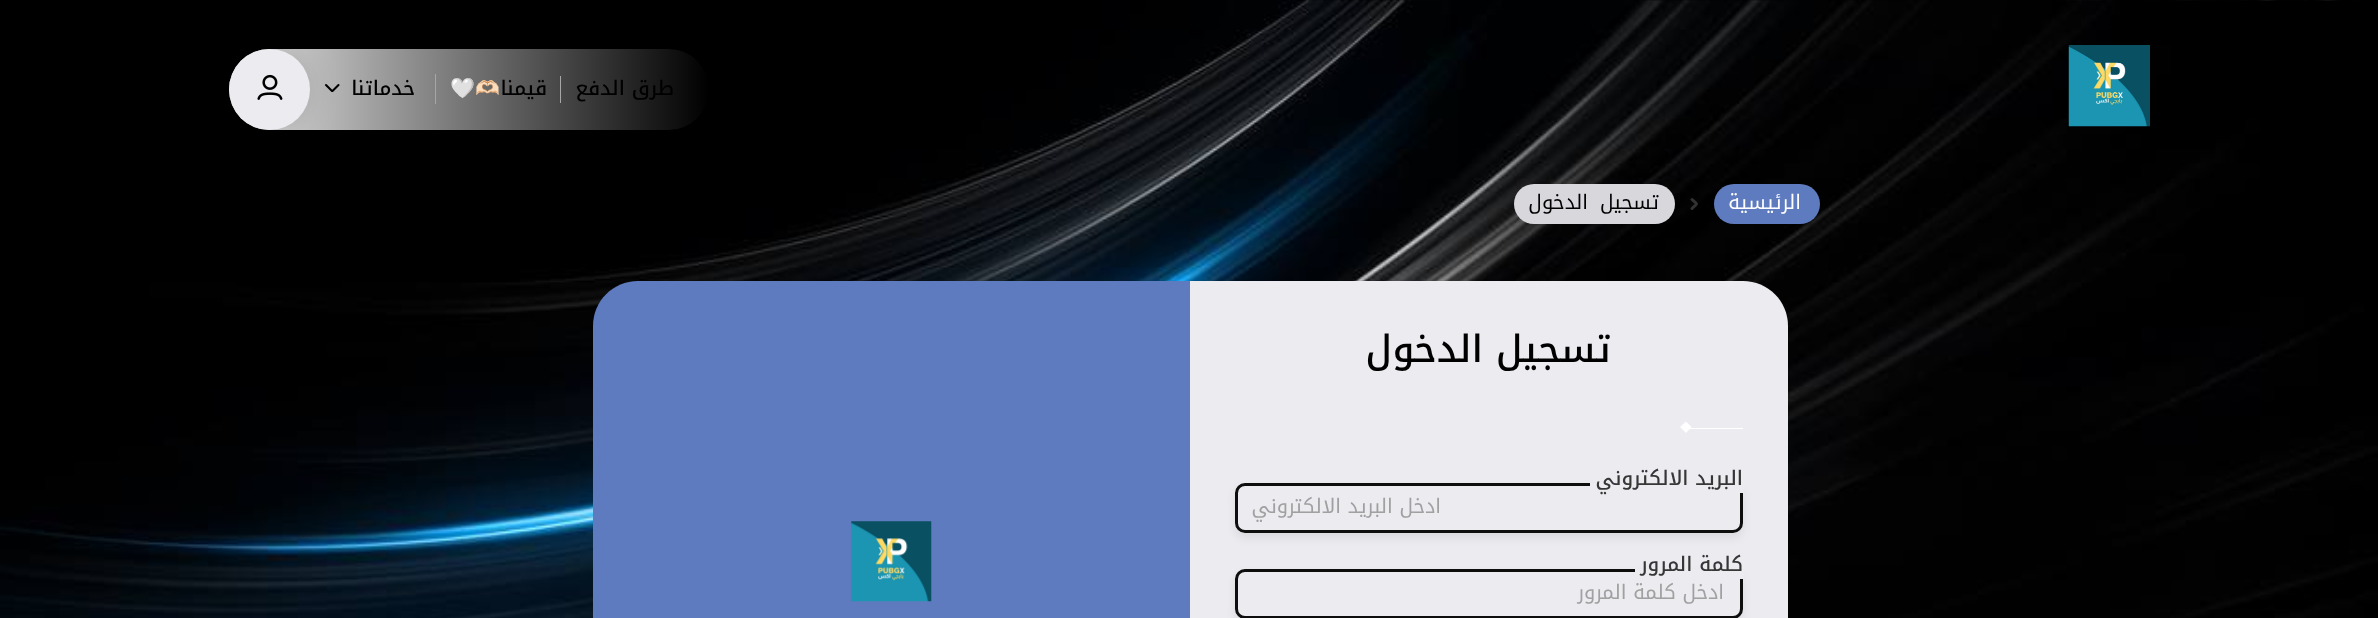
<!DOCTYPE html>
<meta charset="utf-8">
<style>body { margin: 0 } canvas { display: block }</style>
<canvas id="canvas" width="2378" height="618"></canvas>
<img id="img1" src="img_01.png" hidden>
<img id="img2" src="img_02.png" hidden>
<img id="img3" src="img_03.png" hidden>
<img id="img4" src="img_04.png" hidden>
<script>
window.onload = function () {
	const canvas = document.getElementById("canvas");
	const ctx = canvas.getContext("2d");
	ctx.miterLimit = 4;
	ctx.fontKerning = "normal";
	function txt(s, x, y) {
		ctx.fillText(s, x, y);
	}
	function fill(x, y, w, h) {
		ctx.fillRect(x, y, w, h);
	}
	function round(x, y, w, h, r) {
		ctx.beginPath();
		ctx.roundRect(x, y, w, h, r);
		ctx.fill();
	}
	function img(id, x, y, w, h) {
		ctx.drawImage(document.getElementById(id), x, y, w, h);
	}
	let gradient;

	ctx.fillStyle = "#FFFFFF";
	fill(0, 0, 2378, 618);
	img("img1", 0, 0, 2378, 618);
	img("img2", 2068, 45, 82, 82);
	gradient = ctx.createLinearGradient(229, 89, 709, 89);
	gradient.addColorStop(0, "#E5E5E5");
	gradient.addColorStop(1, "#000000");
	ctx.fillStyle = gradient;
	round(229, 49, 480, 81, 40.5);
	ctx.fillStyle = "#A7A7A7";
	fill(560, 76, 1, 27);
	fill(435, 74, 1, 30);
	ctx.fillStyle = "rgba(0, 0, 0, 0.24)";
	ctx.filter = "blur(17px)";
	ctx.beginPath();
	ctx.roundRect(226, 53, 74, 73, 36.5);
	ctx.fill();
	ctx.filter = "none";
	ctx.beginPath();
	ctx.moveTo(326, 85);
	ctx.lineTo(332, 91);
	ctx.lineTo(332.5, 91);
	ctx.lineTo(338.5, 85);
	ctx.strokeStyle = "#000000";
	ctx.lineWidth = 2.1;
	ctx.lineCap = "round";
	ctx.lineJoin = "round";
	ctx.stroke();
	ctx.fillStyle = "#EBEBF0";
	ctx.beginPath();
	ctx.arc(269.5, 89.5, 40.5, 0, Math.PI * 2);
	ctx.fill();
	img("img3", 257, 74, 26, 26);
	ctx.fillStyle = "#5E7BBF";
	round(1714, 184, 106, 40, 20);
	ctx.beginPath();
	ctx.moveTo(1692, 208.5);
	ctx.bezierCurveTo(1698, 202.5, 1698, 205, 1692, 199.5);
	ctx.strokeStyle = "#323232";
	ctx.lineWidth = 3;
	ctx.stroke();
	ctx.fillStyle = "#D8D8DC";
	round(1514, 184, 161, 40, 20);
	ctx.fillStyle = "#EBEBF0";
	ctx.beginPath();
	ctx.moveTo(1190, 281);
	ctx.lineTo(1743, 281);
	ctx.bezierCurveTo(1768, 281, 1788, 301, 1788, 326);
	ctx.lineTo(1788, 618);
	ctx.bezierCurveTo(1788, 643, 1768, 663, 1743, 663);
	ctx.lineTo(1190, 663);
	ctx.closePath();
	ctx.fill();
	ctx.fillStyle = "#FFFFFF";
	fill(1683, 428, 60, 1);
	ctx.beginPath();
	ctx.moveTo(1686, 433);
	ctx.lineTo(1680, 427);
	ctx.lineTo(1686, 421.5);
	ctx.lineTo(1691.5, 427);
	ctx.closePath();
	ctx.fill();
	ctx.save();
	ctx.beginPath();
	ctx.moveTo(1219, 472);
	ctx.lineTo(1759, 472);
	ctx.lineTo(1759, 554);
	ctx.lineTo(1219, 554);
	ctx.closePath();
	ctx.moveTo(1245, 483);
	ctx.lineTo(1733, 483);
	ctx.bezierCurveTo(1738.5, 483, 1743, 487.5, 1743, 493);
	ctx.lineTo(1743, 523);
	ctx.bezierCurveTo(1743, 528.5, 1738.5, 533, 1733, 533);
	ctx.lineTo(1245, 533);
	ctx.bezierCurveTo(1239.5, 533, 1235, 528.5, 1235, 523);
	ctx.lineTo(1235, 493);
	ctx.bezierCurveTo(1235, 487.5, 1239.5, 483, 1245, 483);
	ctx.closePath();
	ctx.clip("evenodd");
	ctx.fillStyle = "rgba(0, 0, 0, 0.07)";
	ctx.filter = "blur(5px)";
	ctx.beginPath();
	ctx.roundRect(1235, 488, 508, 50, 10);
	ctx.fill();
	ctx.filter = "none";
	ctx.restore();
	ctx.beginPath();
	ctx.roundRect(1236.5, 484.5, 505, 47, 8.5);
	ctx.strokeStyle = "#0E0E0E";
	ctx.lineJoin = "miter";
	ctx.stroke();
	ctx.fillStyle = "#EBEBF0";
	fill(1590, 483, 154, 10);
	ctx.save();
	ctx.beginPath();
	ctx.moveTo(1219, 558);
	ctx.lineTo(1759, 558);
	ctx.lineTo(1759, 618);
	ctx.lineTo(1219, 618);
	ctx.closePath();
	ctx.moveTo(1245, 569);
	ctx.lineTo(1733, 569);
	ctx.bezierCurveTo(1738.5, 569, 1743, 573.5, 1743, 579);
	ctx.lineTo(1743, 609);
	ctx.bezierCurveTo(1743, 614.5, 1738.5, 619, 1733, 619);
	ctx.lineTo(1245, 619);
	ctx.bezierCurveTo(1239.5, 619, 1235, 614.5, 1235, 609);
	ctx.lineTo(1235, 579);
	ctx.bezierCurveTo(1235, 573.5, 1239.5, 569, 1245, 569);
	ctx.closePath();
	ctx.clip("evenodd");
	ctx.fillStyle = "rgba(0, 0, 0, 0.07)";
	ctx.filter = "blur(5px)";
	ctx.beginPath();
	ctx.roundRect(1235, 574, 508, 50, 10);
	ctx.fill();
	ctx.filter = "none";
	ctx.restore();
	ctx.beginPath();
	ctx.roundRect(1236.5, 570.5, 505, 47, 8.5);
	ctx.stroke();
	fill(1635, 569, 109, 10);
	ctx.fillStyle = "#5E7BBF";
	ctx.beginPath();
	ctx.moveTo(638, 281);
	ctx.lineTo(1190, 281);
	ctx.lineTo(1190, 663);
	ctx.lineTo(638, 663);
	ctx.bezierCurveTo(613, 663, 593, 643, 593, 618);
	ctx.lineTo(593, 326);
	ctx.bezierCurveTo(593, 301, 613, 281, 638, 281);
	ctx.closePath();
	ctx.fill();
	img("img4", 851, 521, 81, 81);
	ctx.direction = "rtl";
	ctx.font = "500 20px Noto Kufi Arabic";
	ctx.fillStyle = "#000000";
	txt("طرق الدفع", 674, 95);
	txt("قيمنا", 547, 95);
	ctx.font = "20px Noto Color Emoji";
	txt("🫶🏻🤍", 500, 95);
	ctx.font = "500 20px Noto Kufi Arabic";
	txt("خدماتنا", 415, 95);
	ctx.font = "20px Noto Kufi Arabic";
	ctx.fillStyle = "#FFFFFF";
	txt("الرئيسية", 1801, 209);
	ctx.wordSpacing = "5px";
	ctx.fillStyle = "#000000";
	txt("تسجيل الدخول", 1659, 209);
	ctx.wordSpacing = "0px";
	ctx.font = "500 37.5px Noto Kufi Arabic";
	txt("تسجيل الدخول", 1611, 362);
	ctx.font = "500 20px Noto Kufi Arabic";
	ctx.fillStyle = "#363636";
	txt("البريد الالكتروني", 1743, 485);
	ctx.font = "20px Noto Kufi Arabic";
	ctx.fillStyle = "#A0A0A0";
	txt("ادخل البريد الالكتروني", 1441, 513);
	ctx.font = "500 20px Noto Kufi Arabic";
	ctx.fillStyle = "#363636";
	txt("كلمة المرور", 1743, 571);
	ctx.font = "20px Noto Kufi Arabic";
	ctx.fillStyle = "#A0A0A0";
	txt("ادخل كلمة المرور", 1724, 599);
};
</script>
